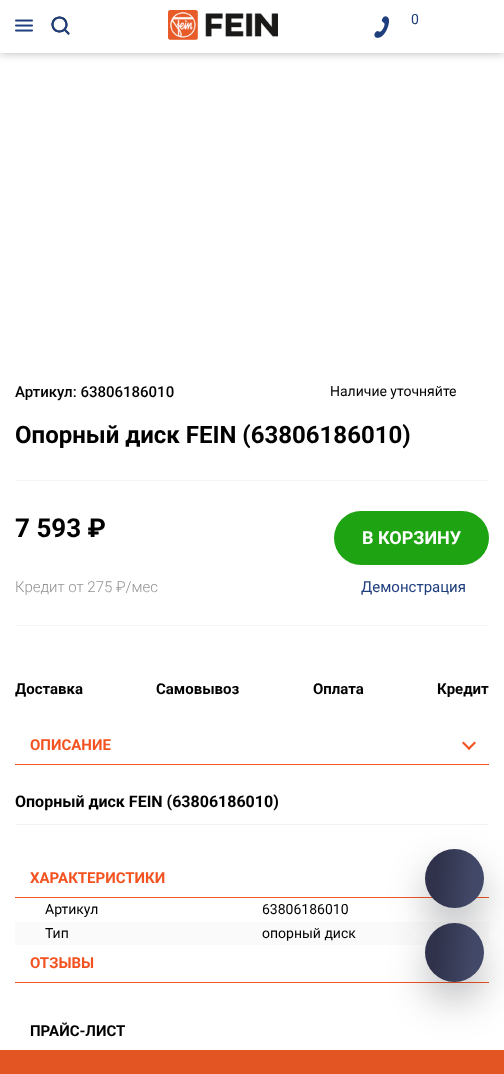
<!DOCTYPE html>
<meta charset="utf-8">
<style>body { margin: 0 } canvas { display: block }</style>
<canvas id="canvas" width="504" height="1074"></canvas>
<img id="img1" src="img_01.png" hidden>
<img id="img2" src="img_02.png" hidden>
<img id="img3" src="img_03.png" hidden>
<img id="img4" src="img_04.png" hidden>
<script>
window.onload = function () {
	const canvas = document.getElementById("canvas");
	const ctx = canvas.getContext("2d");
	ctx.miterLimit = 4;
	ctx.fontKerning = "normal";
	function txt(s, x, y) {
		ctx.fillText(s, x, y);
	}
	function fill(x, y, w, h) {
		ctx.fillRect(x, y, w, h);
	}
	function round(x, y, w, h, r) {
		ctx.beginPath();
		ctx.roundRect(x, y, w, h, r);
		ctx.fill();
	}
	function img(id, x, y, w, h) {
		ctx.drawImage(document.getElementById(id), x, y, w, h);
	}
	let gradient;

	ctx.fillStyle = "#FFFFFF";
	fill(0, 0, 504, 1074);
	ctx.save();
	ctx.beginPath();
	ctx.rect(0, 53, 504, 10);
	ctx.clip();
	ctx.fillStyle = "#B3B3B7";
	ctx.filter = "blur(5px)";
	ctx.beginPath();
	ctx.rect(0, 0, 504, 53);
	ctx.fill();
	ctx.filter = "none";
	ctx.restore();
	img("img1", 15, 19, 18, 13);
	img("img2", 51, 16, 19, 19);
	img("img3", 168, 10, 110, 30);
	img("img4", 374, 16, 15, 22);
	ctx.fillStyle = "#F4F4F4";
	fill(15, 480, 474, 1);
	ctx.fillStyle = "#1EA312";
	round(334, 511, 155, 54, 27);
	ctx.fillStyle = "#F4F4F4";
	fill(15, 625, 474, 1);
	ctx.fillStyle = "#F35321";
	fill(15, 764, 474, 1);
	ctx.beginPath();
	ctx.moveTo(474.5, 741.5);
	ctx.lineTo(476, 743);
	ctx.lineTo(469, 750);
	ctx.lineTo(467.5, 748.5);
	ctx.closePath();
	ctx.fill();
	ctx.beginPath();
	ctx.moveTo(463.5, 741.5);
	ctx.lineTo(470.5, 748.5);
	ctx.lineTo(469, 750);
	ctx.lineTo(462, 743);
	ctx.closePath();
	ctx.fill();
	ctx.fillStyle = "#F3F3F3";
	fill(15, 824, 474, 1);
	ctx.fillStyle = "#F35321";
	fill(15, 897, 474, 1);
	ctx.fillStyle = "#FAFAFA";
	fill(15, 922, 474, 23);
	ctx.fillStyle = "#F35321";
	fill(15, 982, 474, 1);
	ctx.fillStyle = "#E35523";
	fill(0, 1050, 504, 24);
	ctx.fillStyle = "rgba(34, 36, 43, 0.3)";
	ctx.filter = "blur(19px)";
	ctx.beginPath();
	ctx.roundRect(425, 868, 59, 59, 29.5);
	ctx.fill();
	ctx.filter = "none";
	gradient = ctx.createLinearGradient(423, 876, 486, 881);
	gradient.addColorStop(0.2, "#2F324A");
	gradient.addColorStop(0.8, "#424867");
	ctx.fillStyle = gradient;
	ctx.beginPath();
	ctx.arc(454.5, 878.5, 29.5, 0, Math.PI * 2);
	ctx.fill();
	ctx.fillStyle = "rgba(34, 36, 43, 0.3)";
	ctx.filter = "blur(19px)";
	ctx.beginPath();
	ctx.roundRect(425, 942, 59, 59, 29.5);
	ctx.fill();
	ctx.filter = "none";
	gradient = ctx.createLinearGradient(423, 950, 486, 955);
	gradient.addColorStop(0.2, "#2F324A");
	gradient.addColorStop(0.8, "#424867");
	ctx.fillStyle = gradient;
	ctx.beginPath();
	ctx.arc(454.5, 952.5, 29.5, 0, Math.PI * 2);
	ctx.fill();
	ctx.font = "14px Roboto";
	ctx.fillStyle = "#1F3E7D";
	txt("0", 411, 24);
	ctx.font = "500 15px Roboto";
	ctx.fillStyle = "#000000";
	txt("Артикул: 63806186010", 15, 397);
	ctx.font = "14px Roboto";
	txt("Наличие уточняйте", 330, 396);
	ctx.font = "bold 24px Roboto";
	txt("Опорный диск FEIN (63806186010)", 15, 443);
	ctx.font = "bold 26px Roboto";
	txt("7 593 ₽", 15, 537);
	ctx.font = "bold 18px Roboto";
	ctx.fillStyle = "#FFFFFF";
	txt("В КОРЗИНУ", 362, 544);
	ctx.font = "300 15px Roboto";
	ctx.fillStyle = "#939393";
	txt("Кредит от 275 ₽/мес", 15, 592);
	ctx.font = "15px Roboto";
	ctx.fillStyle = "#1F3E7D";
	txt("Демонстрация", 361, 592);
	ctx.font = "bold 15px Roboto";
	ctx.fillStyle = "#000000";
	txt("Доставка", 15, 694);
	txt("Самовывоз", 156, 694);
	txt("Оплата", 313, 694);
	txt("Кредит", 437, 694);
	ctx.fillStyle = "#F35321";
	txt("ОПИСАНИЕ", 30, 750);
	ctx.font = "bold 16px Roboto";
	ctx.fillStyle = "#000000";
	txt("Опорный диск FEIN (63806186010)", 15, 807);
	ctx.font = "bold 15px Roboto";
	ctx.fillStyle = "#F35321";
	txt("ХАРАКТЕРИСТИКИ", 30, 883);
	ctx.font = "14px Roboto";
	ctx.fillStyle = "#000000";
	txt("Артикул", 45, 914);
	txt("63806186010", 262, 914);
	txt("Тип", 45, 938);
	txt("опорный диск", 262, 938);
	ctx.font = "bold 15px Roboto";
	ctx.fillStyle = "#F35321";
	txt("ОТЗЫВЫ", 30, 968);
	ctx.fillStyle = "#000000";
	txt("ПРАЙС-ЛИСТ", 30, 1036);
};
</script>
